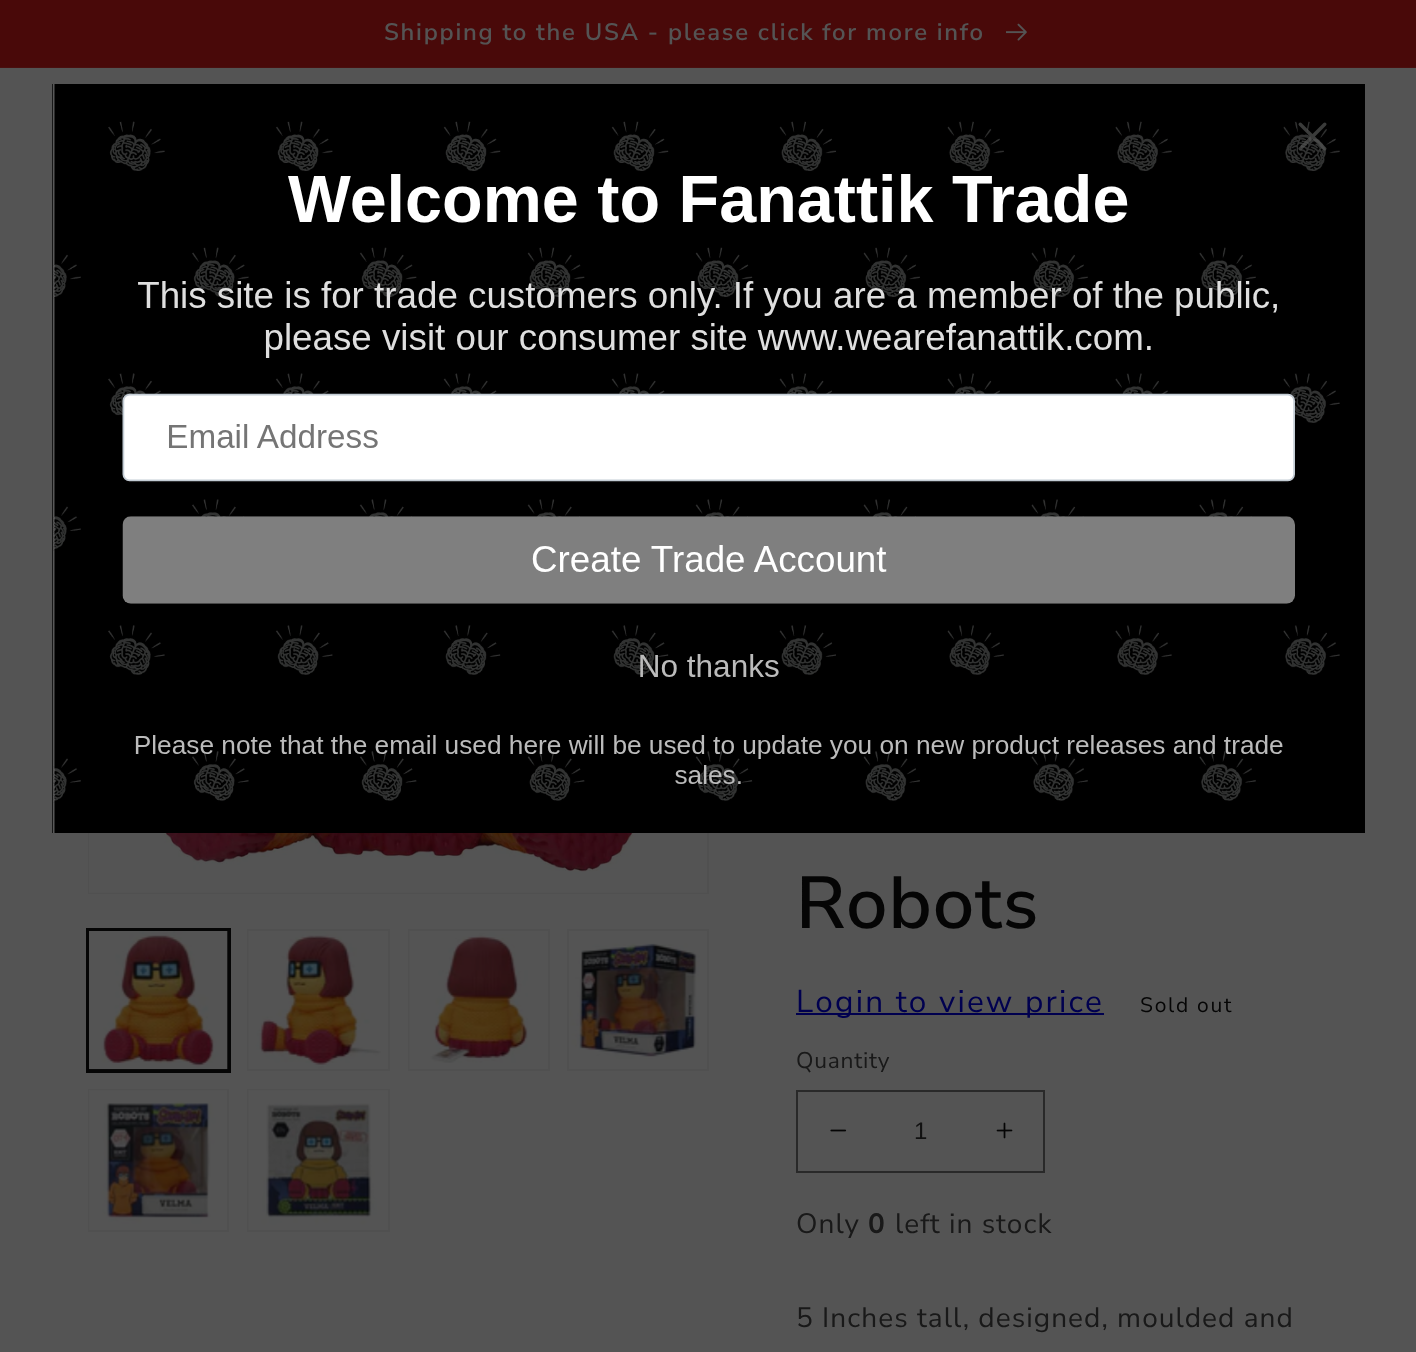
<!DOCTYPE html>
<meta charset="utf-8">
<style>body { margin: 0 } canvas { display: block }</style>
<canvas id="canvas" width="1416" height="1352"></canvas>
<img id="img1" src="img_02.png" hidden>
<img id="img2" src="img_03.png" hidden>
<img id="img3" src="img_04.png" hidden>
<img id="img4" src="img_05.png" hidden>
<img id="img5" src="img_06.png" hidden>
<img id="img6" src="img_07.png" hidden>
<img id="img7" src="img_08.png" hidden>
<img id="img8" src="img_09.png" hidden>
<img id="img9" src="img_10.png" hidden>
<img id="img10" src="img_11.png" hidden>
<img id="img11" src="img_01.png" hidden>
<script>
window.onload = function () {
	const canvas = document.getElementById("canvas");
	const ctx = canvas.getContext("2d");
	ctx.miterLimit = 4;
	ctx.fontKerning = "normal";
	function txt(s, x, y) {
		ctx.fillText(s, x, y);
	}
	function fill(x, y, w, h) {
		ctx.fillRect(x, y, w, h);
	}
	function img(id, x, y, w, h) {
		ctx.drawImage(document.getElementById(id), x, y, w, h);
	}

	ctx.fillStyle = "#FFFFFF";
	fill(0, 0, 1416, 1352);
	ctx.fillStyle = "#DD1D1D";
	fill(0, 0, 1416, 67);
	ctx.fillStyle = "#E02F2F";
	fill(0, 67, 1416, 1);
	img("img1", 1006, 23, 21, 18);
	ctx.strokeStyle = "#F3F3F3";
	ctx.lineWidth = 2;
	ctx.strokeRect(89, 271, 619, 622);
	img("img2", 89, 833, 618, 60);
	ctx.strokeStyle = "#121212";
	ctx.strokeRect(87, 929, 143, 143);
	ctx.strokeRect(89, 930, 139, 140);
	img("img3", 89, 931, 139, 139);
	ctx.strokeStyle = "#F3F3F3";
	ctx.strokeRect(248, 930, 141, 140);
	img("img4", 248, 931, 133, 138);
	ctx.strokeRect(409, 930, 140, 140);
	img("img5", 409, 931, 119, 138);
	ctx.strokeRect(568, 930, 140, 140);
	img("img6", 569, 943, 131, 116);
	ctx.strokeRect(89, 1090, 139, 141);
	img("img7", 89, 1090, 138, 140);
	ctx.strokeRect(248, 1090, 141, 141);
	img("img8", 248, 1090, 140, 140);
	ctx.fillStyle = "#0000EE";
	fill(796, 1013, 308, 2);
	img("img9", 830, 1129, 17, 3);
	img("img10", 996, 1122, 17, 17);
	ctx.strokeStyle = "#7D7D7D";
	ctx.strokeRect(797, 1091, 247, 81);
	ctx.letterSpacing = "1.75px";
	ctx.font = "600 23.9px Nunito Sans";
	ctx.fillStyle = "#FFFFFF";
	txt("Shipping to the USA - please click for more info", 384, 40);
	ctx.letterSpacing = "1px";
	ctx.font = "600 73.5px Nunito Sans";
	ctx.fillStyle = "#121212";
	txt("Robots", 796, 928);
	ctx.letterSpacing = "2.25px";
	ctx.font = "31.5px Nunito Sans";
	ctx.fillStyle = "#0000EE";
	txt("Login to view price", 796, 1012);
	ctx.letterSpacing = "1.75px";
	ctx.font = "21px Nunito Sans";
	ctx.fillStyle = "#121212";
	txt("Sold out", 1140, 1012);
	ctx.letterSpacing = "0.75px";
	ctx.font = "22.75px Nunito Sans";
	ctx.fillStyle = "#4D4D4D";
	txt("Quantity", 796, 1068);
	ctx.letterSpacing = "0px";
	ctx.font = "24px Liberation Sans";
	ctx.fillStyle = "#363636";
	txt("1", 914, 1139);
	ctx.letterSpacing = "1.05px";
	ctx.font = "28px Nunito Sans";
	ctx.fillStyle = "#4D4D4D";
	txt("Only", 796, 1233);
	ctx.font = "bold 28px Nunito Sans";
	txt("0", 868, 1233);
	ctx.font = "28px Nunito Sans";
	txt("left in stock", 895, 1233);
	txt("5 Inches tall, designed, moulded and", 796, 1327);
	img("img11", 0, 0, 1416, 1352);
};
</script>
